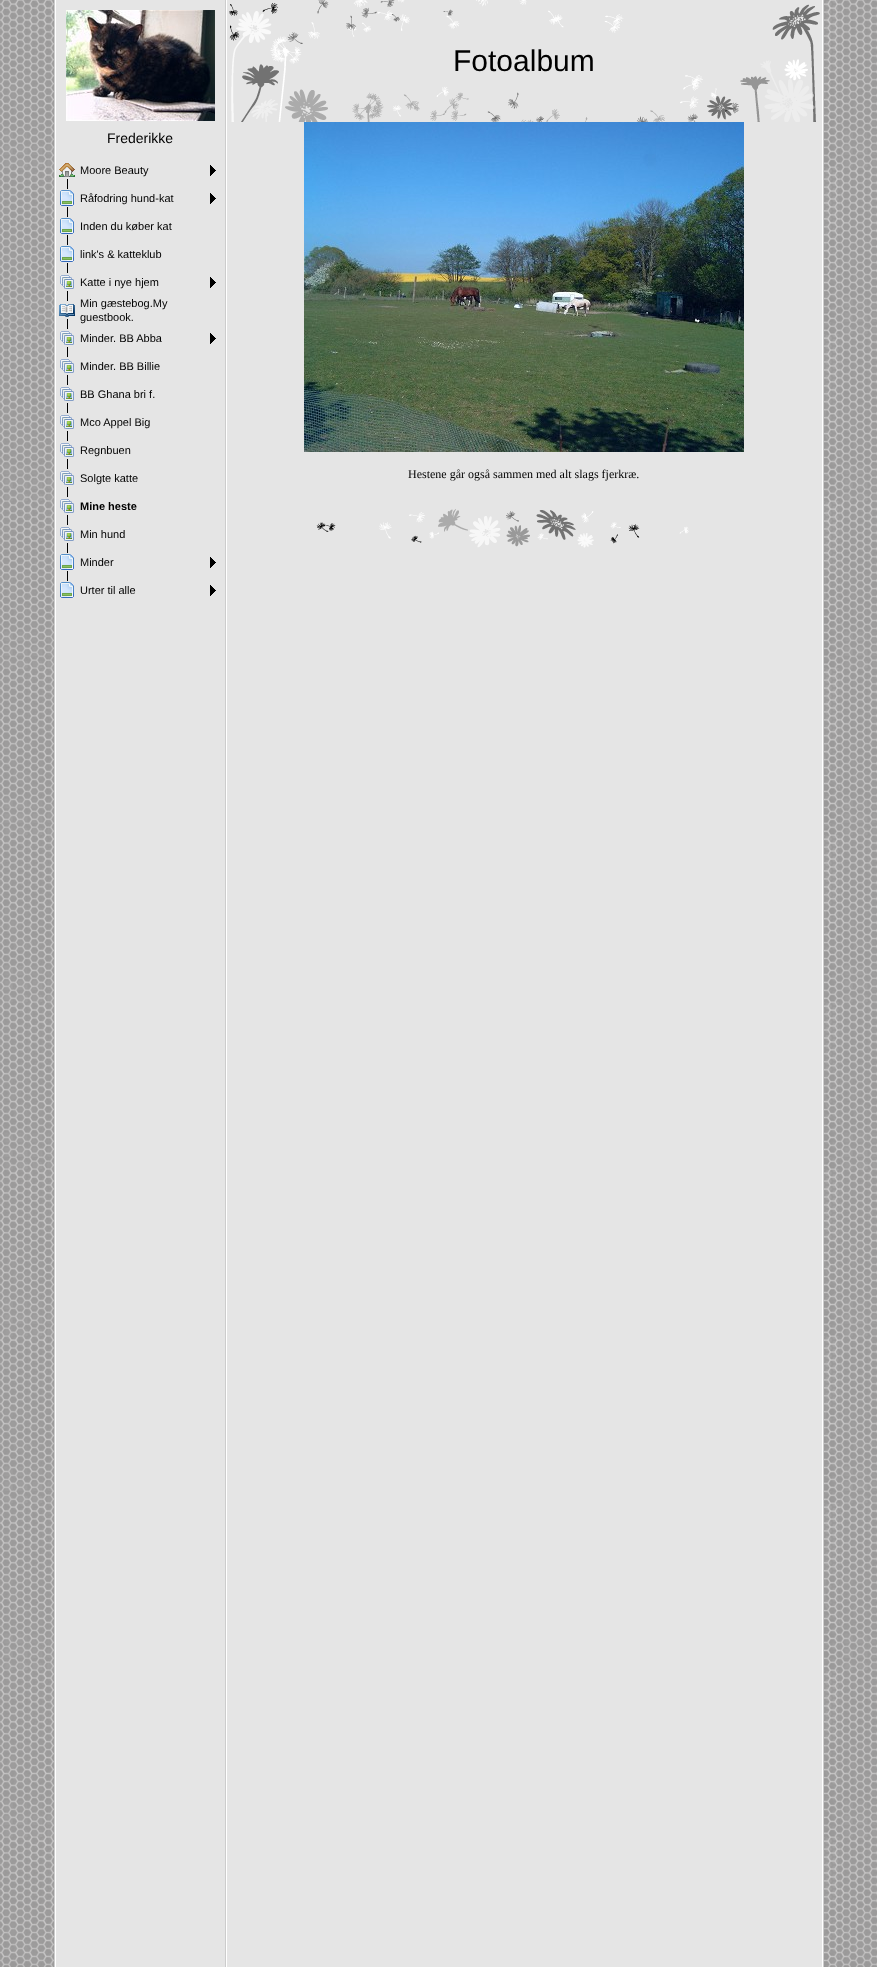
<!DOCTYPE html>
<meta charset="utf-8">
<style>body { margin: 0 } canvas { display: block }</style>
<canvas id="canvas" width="877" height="1967"></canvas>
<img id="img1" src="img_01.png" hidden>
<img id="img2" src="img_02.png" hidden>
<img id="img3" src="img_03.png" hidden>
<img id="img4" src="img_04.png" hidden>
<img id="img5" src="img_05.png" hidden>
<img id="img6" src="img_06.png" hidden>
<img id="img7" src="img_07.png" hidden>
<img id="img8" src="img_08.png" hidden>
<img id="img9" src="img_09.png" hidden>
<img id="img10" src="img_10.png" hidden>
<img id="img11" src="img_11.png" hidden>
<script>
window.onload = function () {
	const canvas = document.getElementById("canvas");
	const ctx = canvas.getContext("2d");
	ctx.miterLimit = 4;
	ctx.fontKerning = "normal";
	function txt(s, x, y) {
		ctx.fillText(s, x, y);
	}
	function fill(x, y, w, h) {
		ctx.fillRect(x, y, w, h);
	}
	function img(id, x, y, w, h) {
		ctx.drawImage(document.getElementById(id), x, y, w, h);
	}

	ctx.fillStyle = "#C0BFBF";
	fill(0, 0, 877, 1967);
	img("img1", 0, 0, 877, 1967);
	ctx.fillStyle = "#FFFFFF";
	fill(55, 0, 768, 1967);
	ctx.fillStyle = "#CCCCCC";
	fill(54, 0, 1, 1967);
	ctx.fillStyle = "#E5E5E5";
	fill(56, 0, 169, 1967);
	img("img2", 66, 10, 149, 111);
	ctx.fillStyle = "#000000";
	fill(67, 179, 1, 5);
	img("img3", 59, 163, 16, 14);
	img("img4", 210, 165, 6, 11);
	img("img5", 67, 184, 1, 28);
	img("img6", 60, 190, 14, 16);
	img("img4", 210, 193, 6, 11);
	img("img5", 67, 212, 1, 28);
	img("img6", 60, 218, 14, 16);
	img("img5", 67, 240, 1, 28);
	img("img6", 60, 246, 14, 16);
	img("img5", 67, 268, 1, 28);
	img("img7", 60, 275, 14, 14);
	img("img4", 210, 277, 6, 11);
	img("img5", 67, 296, 1, 28);
	img("img8", 59, 304, 16, 13);
	img("img5", 67, 324, 1, 28);
	img("img7", 60, 331, 14, 14);
	img("img4", 210, 333, 6, 11);
	img("img5", 67, 352, 1, 28);
	img("img7", 60, 359, 14, 14);
	img("img5", 67, 380, 1, 28);
	img("img7", 60, 387, 14, 14);
	img("img5", 67, 408, 1, 28);
	img("img7", 60, 415, 14, 14);
	img("img5", 67, 436, 1, 28);
	img("img7", 60, 443, 14, 14);
	img("img5", 67, 464, 1, 28);
	img("img7", 60, 471, 14, 14);
	img("img5", 67, 492, 1, 28);
	img("img7", 60, 499, 14, 14);
	img("img5", 67, 520, 1, 28);
	img("img7", 60, 527, 14, 14);
	img("img5", 67, 548, 1, 28);
	img("img6", 60, 554, 14, 16);
	img("img4", 210, 557, 6, 11);
	fill(67, 576, 1, 5);
	img("img6", 60, 582, 14, 16);
	img("img4", 210, 585, 6, 11);
	ctx.fillStyle = "#CCCCCC";
	fill(225, 0, 1, 1967);
	ctx.fillStyle = "#E5E5E5";
	fill(227, 0, 595, 1967);
	img("img9", 229, 0, 591, 122);
	img("img10", 304, 122, 440, 330);
	img("img11", 316, 509, 373, 39);
	ctx.fillStyle = "#CCCCCC";
	fill(823, 0, 1, 1967);
	ctx.font = "14px Liberation Sans";
	ctx.fillStyle = "#000000";
	txt("Frederikke", 107, 143);
	ctx.font = "11px Liberation Sans";
	txt("Moore Beauty", 80, 174);
	txt("Råfodring hund-kat", 80, 202);
	txt("Inden du køber kat", 80, 230);
	txt("link's & katteklub", 80, 258);
	txt("Katte i nye hjem", 80, 286);
	txt("Min gæstebog.My", 80, 307);
	txt("guestbook.", 80, 321);
	txt("Minder. BB Abba", 80, 342);
	txt("Minder. BB Billie", 80, 370);
	txt("BB Ghana bri f.", 80, 398);
	txt("Mco Appel Big", 80, 426);
	txt("Regnbuen", 80, 454);
	txt("Solgte katte", 80, 482);
	ctx.font = "bold 11px Liberation Sans";
	txt("Mine heste", 80, 510);
	ctx.font = "11px Liberation Sans";
	txt("Min hund", 80, 538);
	txt("Minder", 80, 566);
	txt("Urter til alle", 80, 594);
	ctx.font = "30px Liberation Sans";
	txt("Fotoalbum", 453, 71);
	ctx.font = "12px Liberation Serif";
	txt("Hestene går også sammen med alt slags fjerkræ.", 408, 478);
};
</script>
